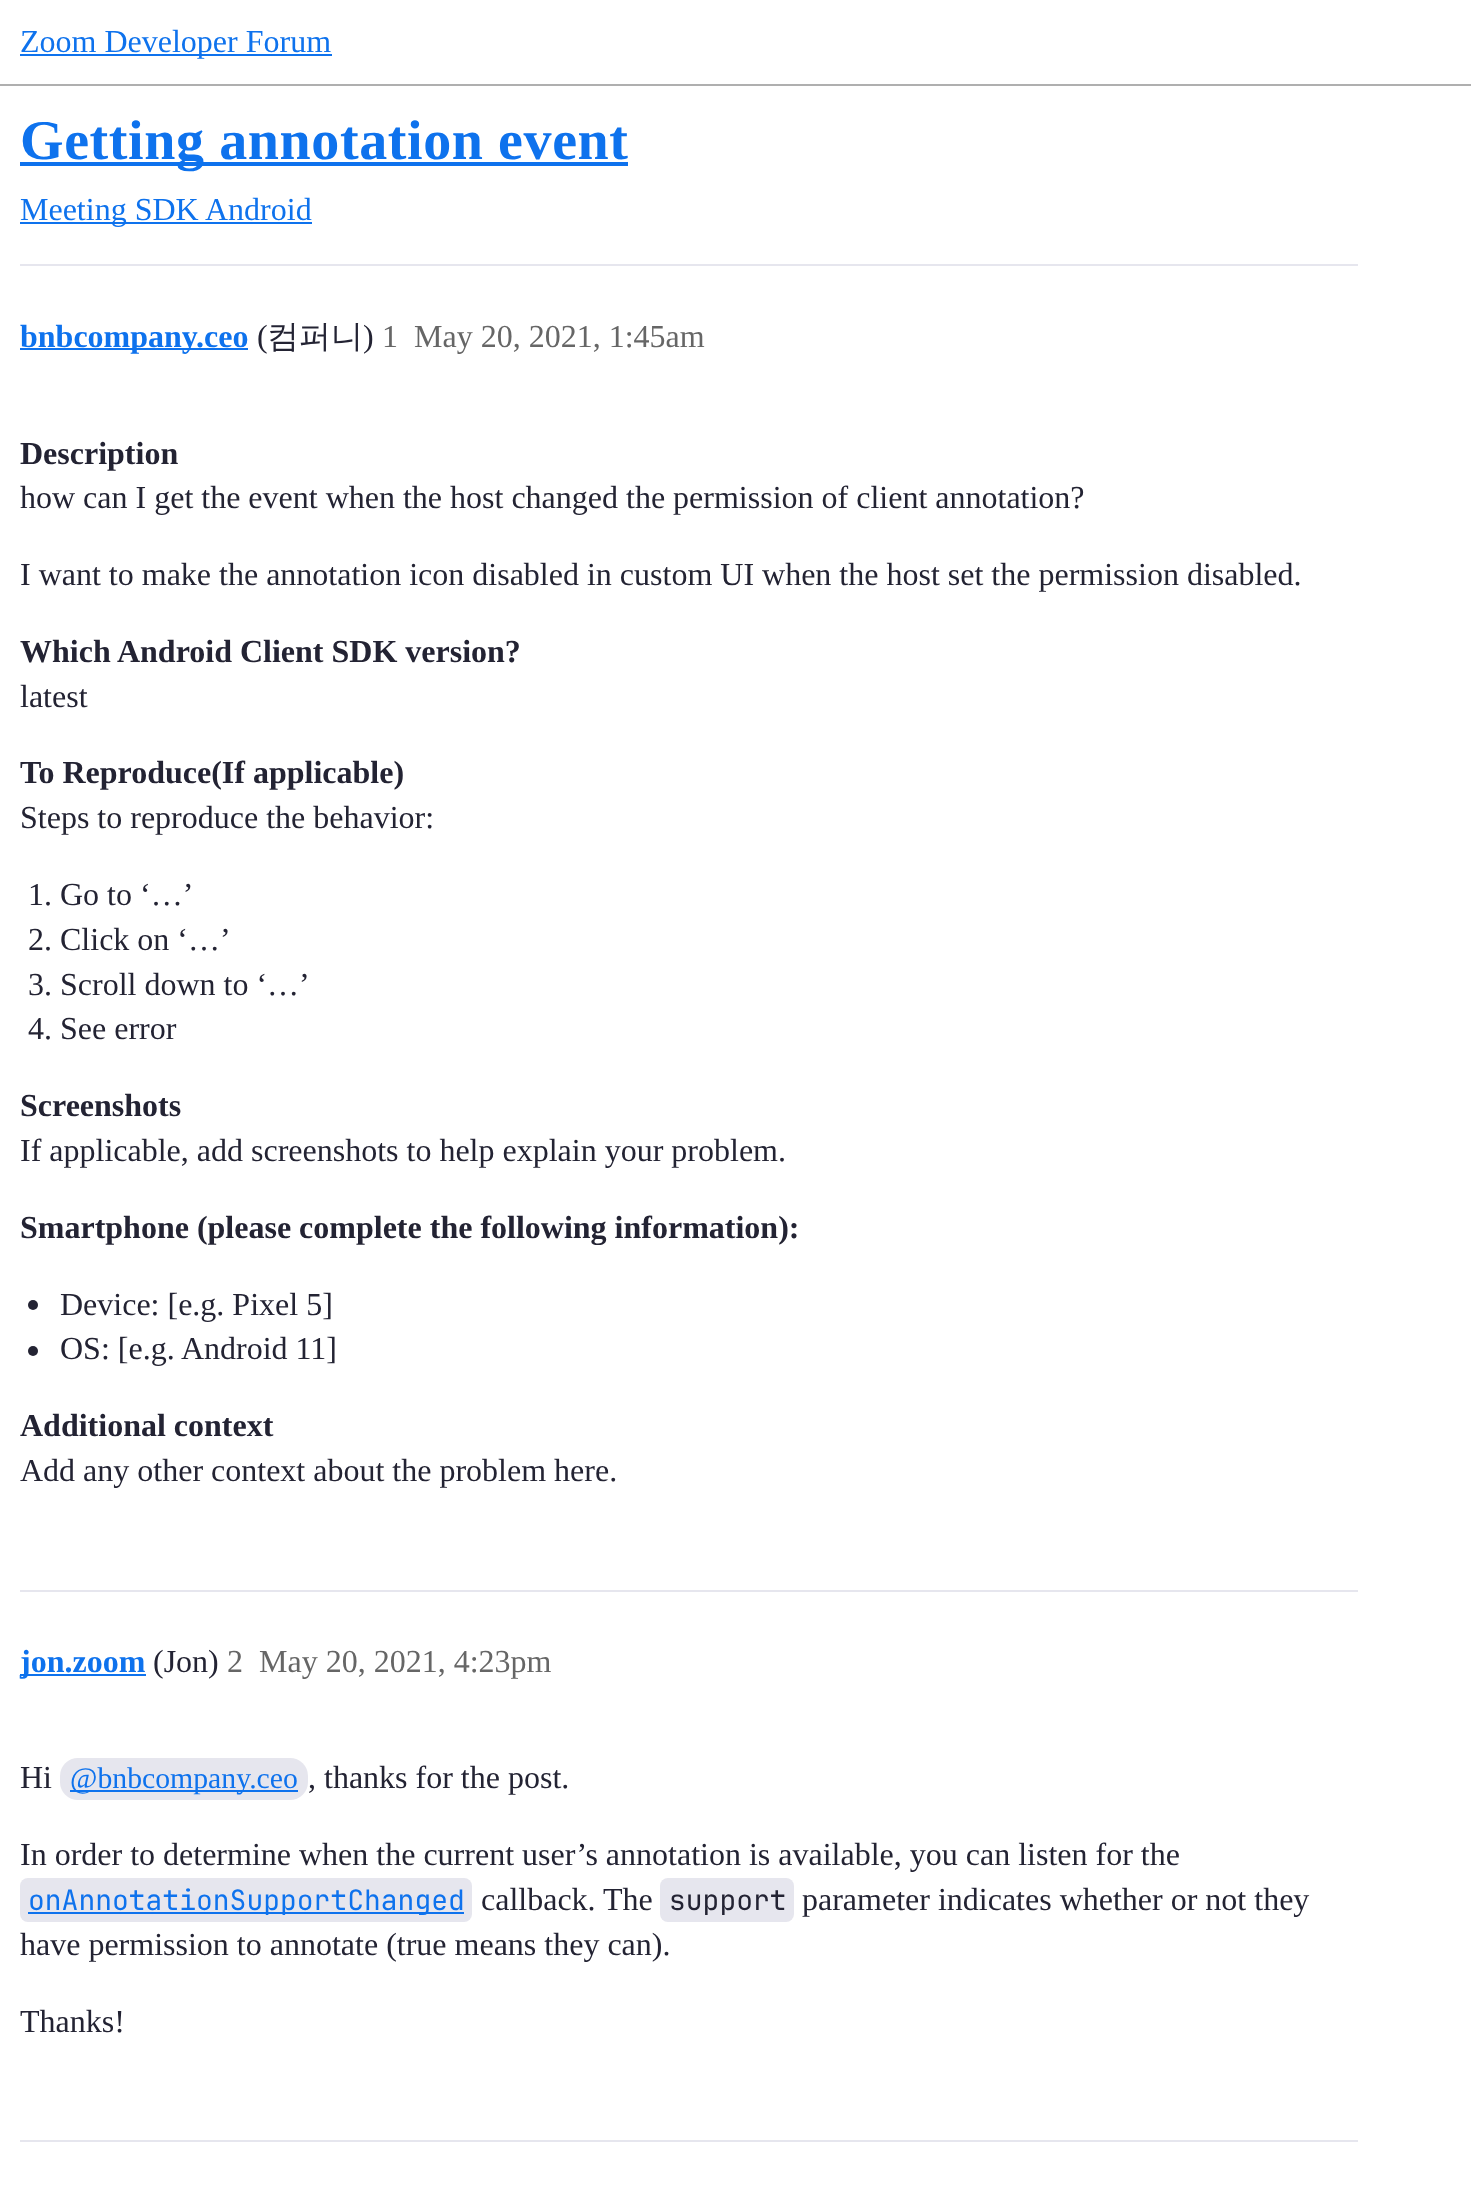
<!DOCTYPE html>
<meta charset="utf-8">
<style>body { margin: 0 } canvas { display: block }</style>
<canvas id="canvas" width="1471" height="2190"></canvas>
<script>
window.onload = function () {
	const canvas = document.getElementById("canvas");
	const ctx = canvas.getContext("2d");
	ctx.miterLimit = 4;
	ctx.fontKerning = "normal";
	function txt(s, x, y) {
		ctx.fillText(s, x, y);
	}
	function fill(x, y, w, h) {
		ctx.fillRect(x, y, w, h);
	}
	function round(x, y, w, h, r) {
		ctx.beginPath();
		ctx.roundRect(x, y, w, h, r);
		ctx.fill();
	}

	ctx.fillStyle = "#FFFFFF";
	fill(0, 0, 1471, 2190);
	ctx.fillStyle = "#AFAFAF";
	fill(0, 84, 1471, 2);
	ctx.fillStyle = "#0E72ED";
	fill(20, 54, 312, 2);
	fill(20, 162, 608, 4);
	fill(20, 222, 178, 2);
	fill(198, 222, 114, 2);
	ctx.fillStyle = "#E6E6EE";
	fill(20, 264, 1338, 2);
	ctx.fillStyle = "#0E72ED";
	fill(20, 348, 228, 2);
	ctx.fillStyle = "#232333";
	ctx.beginPath();
	ctx.arc(33, 1305, 5, 0, Math.PI * 2);
	ctx.fill();
	ctx.beginPath();
	ctx.arc(33, 1351, 5, 0, Math.PI * 2);
	ctx.fill();
	ctx.fillStyle = "#E6E6EE";
	fill(20, 1590, 1338, 2);
	ctx.fillStyle = "#0E72ED";
	fill(20, 1674, 126, 2);
	ctx.fillStyle = "#E6E6EE";
	round(60, 1758, 248, 42, 18);
	ctx.fillStyle = "#0E72ED";
	fill(70, 1790, 228, 2);
	ctx.fillStyle = "#E6E6EE";
	round(20, 1878, 452, 44, 8);
	ctx.fillStyle = "#0E72ED";
	fill(28, 1912, 436, 2);
	ctx.fillStyle = "#E6E6EE";
	round(660, 1878, 134, 44, 8);
	fill(20, 2140, 1338, 2);
	ctx.font = "32px Liberation Serif";
	ctx.fillStyle = "#0E72ED";
	txt("Zoom Developer Forum", 20, 52);
	ctx.letterSpacing = "0.6px";
	ctx.font = "bold 56px Liberation Serif";
	txt("Getting annotation event", 20, 159);
	ctx.letterSpacing = "0px";
	ctx.font = "32px Liberation Serif";
	txt("Meeting SDK", 20, 220);
	txt("Android", 205, 220);
	ctx.font = "bold 32px Liberation Serif";
	txt("bnbcompany.ceo", 20, 347);
	ctx.font = "32px Liberation Serif";
	ctx.fillStyle = "#232333";
	txt("(", 257, 347);
	ctx.font = "500 32px WenQuanYi Zen Hei";
	txt("컴퍼니", 267, 347);
	ctx.font = "32px Liberation Serif";
	txt(")", 363, 347);
	ctx.fillStyle = "#666666";
	txt("1", 382, 347);
	txt("May 20, 2021, 1:45am", 414, 347);
	ctx.font = "bold 32px Liberation Serif";
	ctx.fillStyle = "#232333";
	txt("Description", 20, 464);
	ctx.font = "32px Liberation Serif";
	txt("how can I get the event when the host changed the permission of client annotation?", 20, 508);
	txt("I want to make the annotation icon disabled in custom UI when the host set the permission disabled.", 20, 585);
	ctx.font = "bold 32px Liberation Serif";
	txt("Which Android Client SDK version?", 20, 662);
	ctx.font = "32px Liberation Serif";
	txt("latest", 20, 707);
	ctx.font = "bold 32px Liberation Serif";
	txt("To Reproduce(If applicable)", 20, 783);
	ctx.font = "32px Liberation Serif";
	txt("Steps to reproduce the behavior:", 20, 828);
	txt("1. Go to ‘…’", 28, 905);
	txt("2. Click on ‘…’", 28, 950);
	txt("3. Scroll down to ‘…’", 28, 995);
	txt("4. See error", 28, 1039);
	ctx.font = "bold 32px Liberation Serif";
	txt("Screenshots", 20, 1116);
	ctx.font = "32px Liberation Serif";
	txt("If applicable, add screenshots to help explain your problem.", 20, 1161);
	ctx.font = "bold 32px Liberation Serif";
	txt("Smartphone (please complete the following information):", 20, 1238);
	ctx.font = "32px Liberation Serif";
	txt("Device: [e.g. Pixel 5]", 60, 1315);
	txt("OS: [e.g. Android 11]", 60, 1359);
	ctx.font = "bold 32px Liberation Serif";
	txt("Additional context", 20, 1436);
	ctx.font = "32px Liberation Serif";
	txt("Add any other context about the problem here.", 20, 1481);
	ctx.font = "bold 32px Liberation Serif";
	ctx.fillStyle = "#0E72ED";
	txt("jon.zoom", 20, 1672);
	ctx.font = "32px Liberation Serif";
	ctx.fillStyle = "#232333";
	txt("(Jon)", 153, 1672);
	ctx.fillStyle = "#666666";
	txt("2", 227, 1672);
	txt("May 20, 2021, 4:23pm", 259, 1672);
	ctx.fillStyle = "#232333";
	txt("Hi", 20, 1788);
	ctx.font = "29.75px Liberation Serif";
	ctx.fillStyle = "#0E72ED";
	txt("@bnbcompany.ceo", 70, 1788);
	ctx.font = "32px Liberation Serif";
	ctx.fillStyle = "#232333";
	txt(", thanks for the post.", 308, 1788);
	txt("In order to determine when the current user’s annotation is available, you can listen for the", 20, 1865);
	ctx.font = "28px JetBrains Mono";
	ctx.fillStyle = "#0E72ED";
	txt("onAnnotationSupportChanged", 28, 1910);
	ctx.font = "32px Liberation Serif";
	ctx.fillStyle = "#232333";
	txt("callback. The", 481, 1910);
	ctx.font = "28px JetBrains Mono";
	txt("support", 669, 1910);
	ctx.font = "32px Liberation Serif";
	txt("parameter indicates whether or not they", 802, 1910);
	txt("have permission to annotate (true means they can).", 20, 1955);
	txt("Thanks!", 20, 2032);
};
</script>
